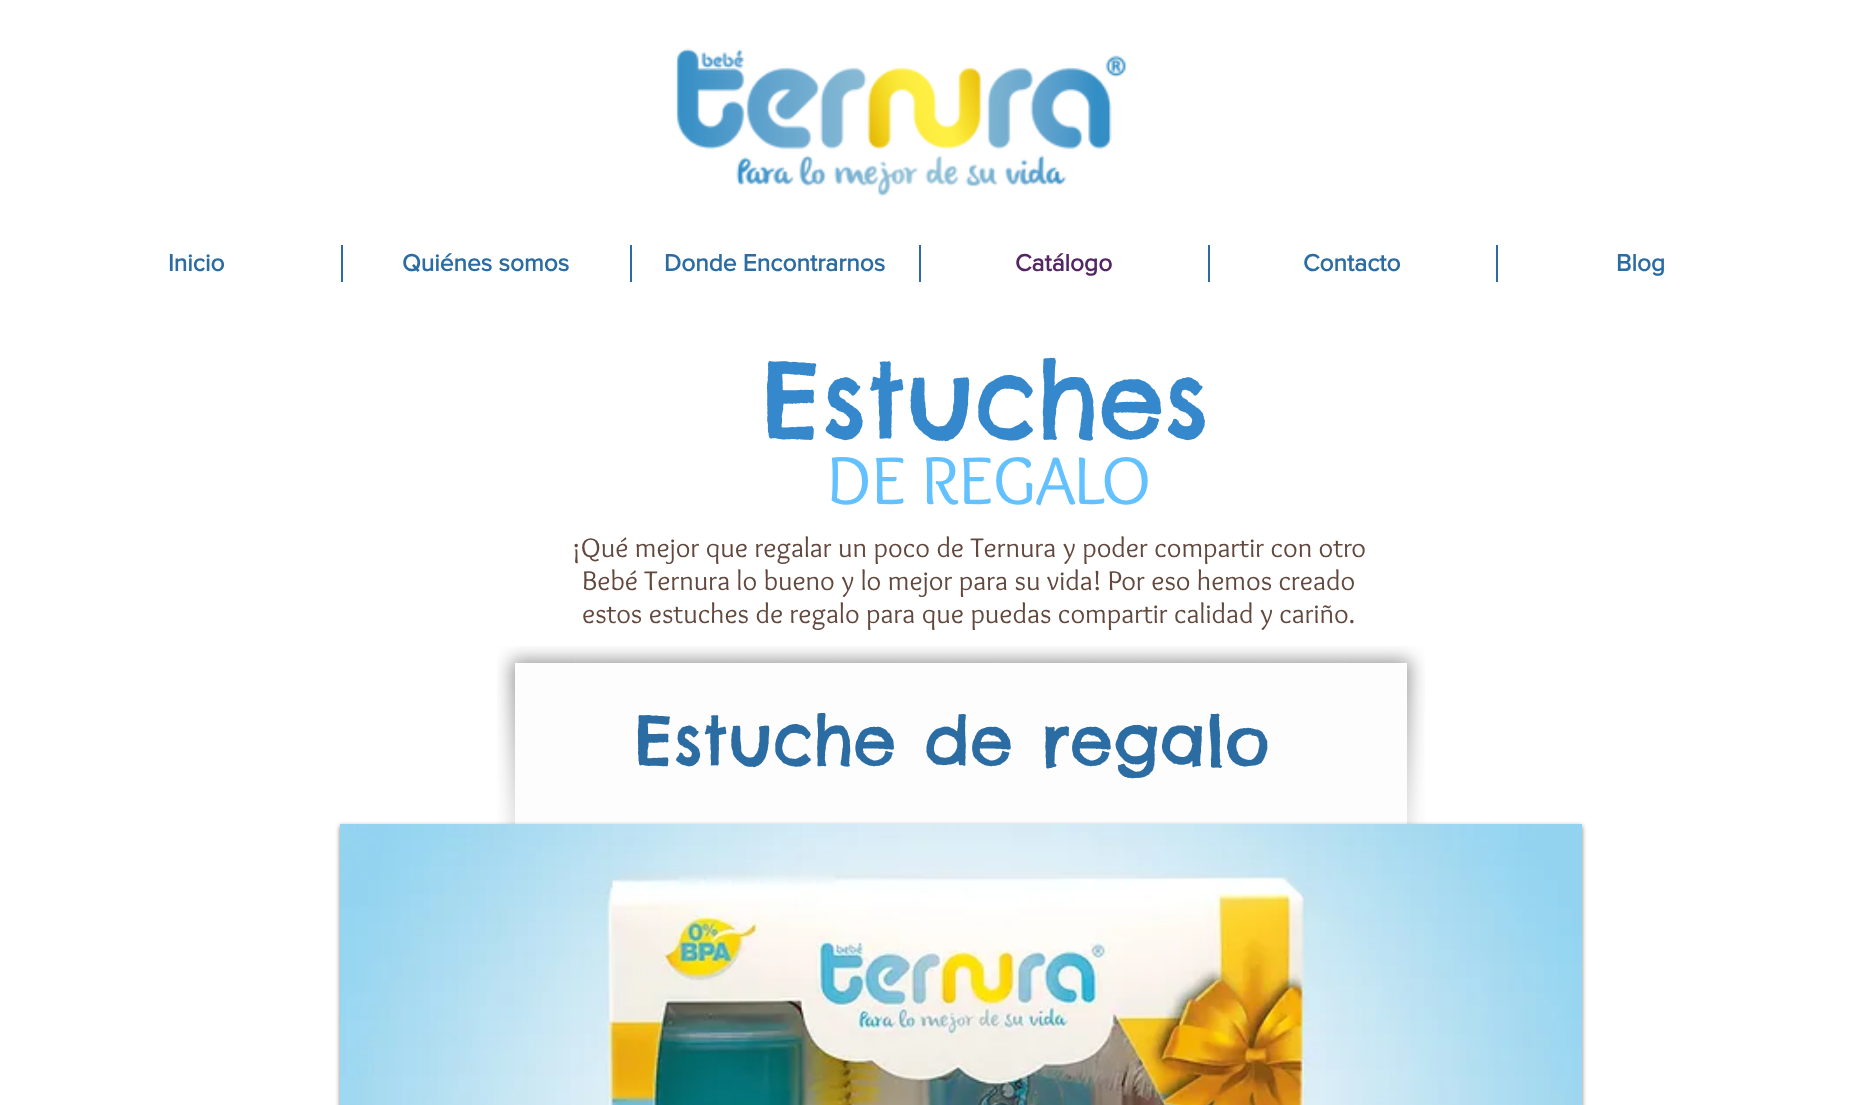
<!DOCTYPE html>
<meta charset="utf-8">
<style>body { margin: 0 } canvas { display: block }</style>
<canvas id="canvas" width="1852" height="1105"></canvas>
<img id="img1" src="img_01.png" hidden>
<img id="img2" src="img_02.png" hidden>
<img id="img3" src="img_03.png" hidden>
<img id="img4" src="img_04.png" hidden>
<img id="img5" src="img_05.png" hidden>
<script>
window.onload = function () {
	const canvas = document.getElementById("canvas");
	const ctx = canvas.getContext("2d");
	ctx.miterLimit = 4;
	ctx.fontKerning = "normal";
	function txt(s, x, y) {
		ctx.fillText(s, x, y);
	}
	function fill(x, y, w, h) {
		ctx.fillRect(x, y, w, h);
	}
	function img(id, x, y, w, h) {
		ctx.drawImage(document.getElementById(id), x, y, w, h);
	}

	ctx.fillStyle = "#FFFFFF";
	fill(0, 0, 1852, 1105);
	img("img1", 676, 48, 451, 149);
	ctx.fillStyle = "#2B6CA3";
	fill(341, 245, 2, 37);
	fill(630, 245, 2, 37);
	fill(919, 245, 2, 37);
	fill(1208, 245, 2, 37);
	fill(1496, 245, 2, 37);
	img("img2", 497, 646, 79, 178);
	img("img3", 575, 646, 771, 17);
	img("img4", 1345, 646, 80, 178);
	ctx.fillStyle = "#FEFDFD";
	fill(515, 663, 892, 161);
	ctx.fillStyle = "rgba(0, 0, 0, 0.5)";
	ctx.filter = "blur(2.5px)";
	ctx.beginPath();
	ctx.rect(340, 826, 1242, 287);
	ctx.fill();
	ctx.filter = "none";
	img("img5", 340, 824, 1242, 281);
	ctx.font = "bold 24.5px 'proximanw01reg'";
	ctx.fillStyle = "#2B6CA3";
	txt("Inicio", 168, 271);
	txt("Quiénes somos", 402, 271);
	txt("Donde Encontrarnos", 664, 271);
	ctx.fillStyle = "#532563";
	txt("Catálogo", 1015, 271);
	ctx.fillStyle = "#2B6CA3";
	txt("Contacto", 1303, 271);
	txt("Blog", 1616, 271);
	ctx.font = "105px Chelsea Market";
	ctx.fillStyle = "#3588CC";
	txt("Estuches", 761, 438);
	ctx.font = "70px Overlock";
	ctx.fillStyle = "#63C1FF";
	txt("DE REGALO", 827, 504);
	ctx.font = "28px Overlock";
	ctx.fillStyle = "#62483D";
	txt("¡Qué mejor que regalar un poco de Ternura y poder compartir con otro", 572, 557);
	txt("Bebé Ternura lo bueno y lo mejor para su vida! Por eso hemos creado", 582, 590);
	txt("estos estuches de regalo para que puedas compartir calidad y cariño.", 582, 623);
	ctx.font = "68.25px Chelsea Market";
	ctx.fillStyle = "#2B6CA3";
	txt("Estuche de regalo", 634, 765);
};
</script>
